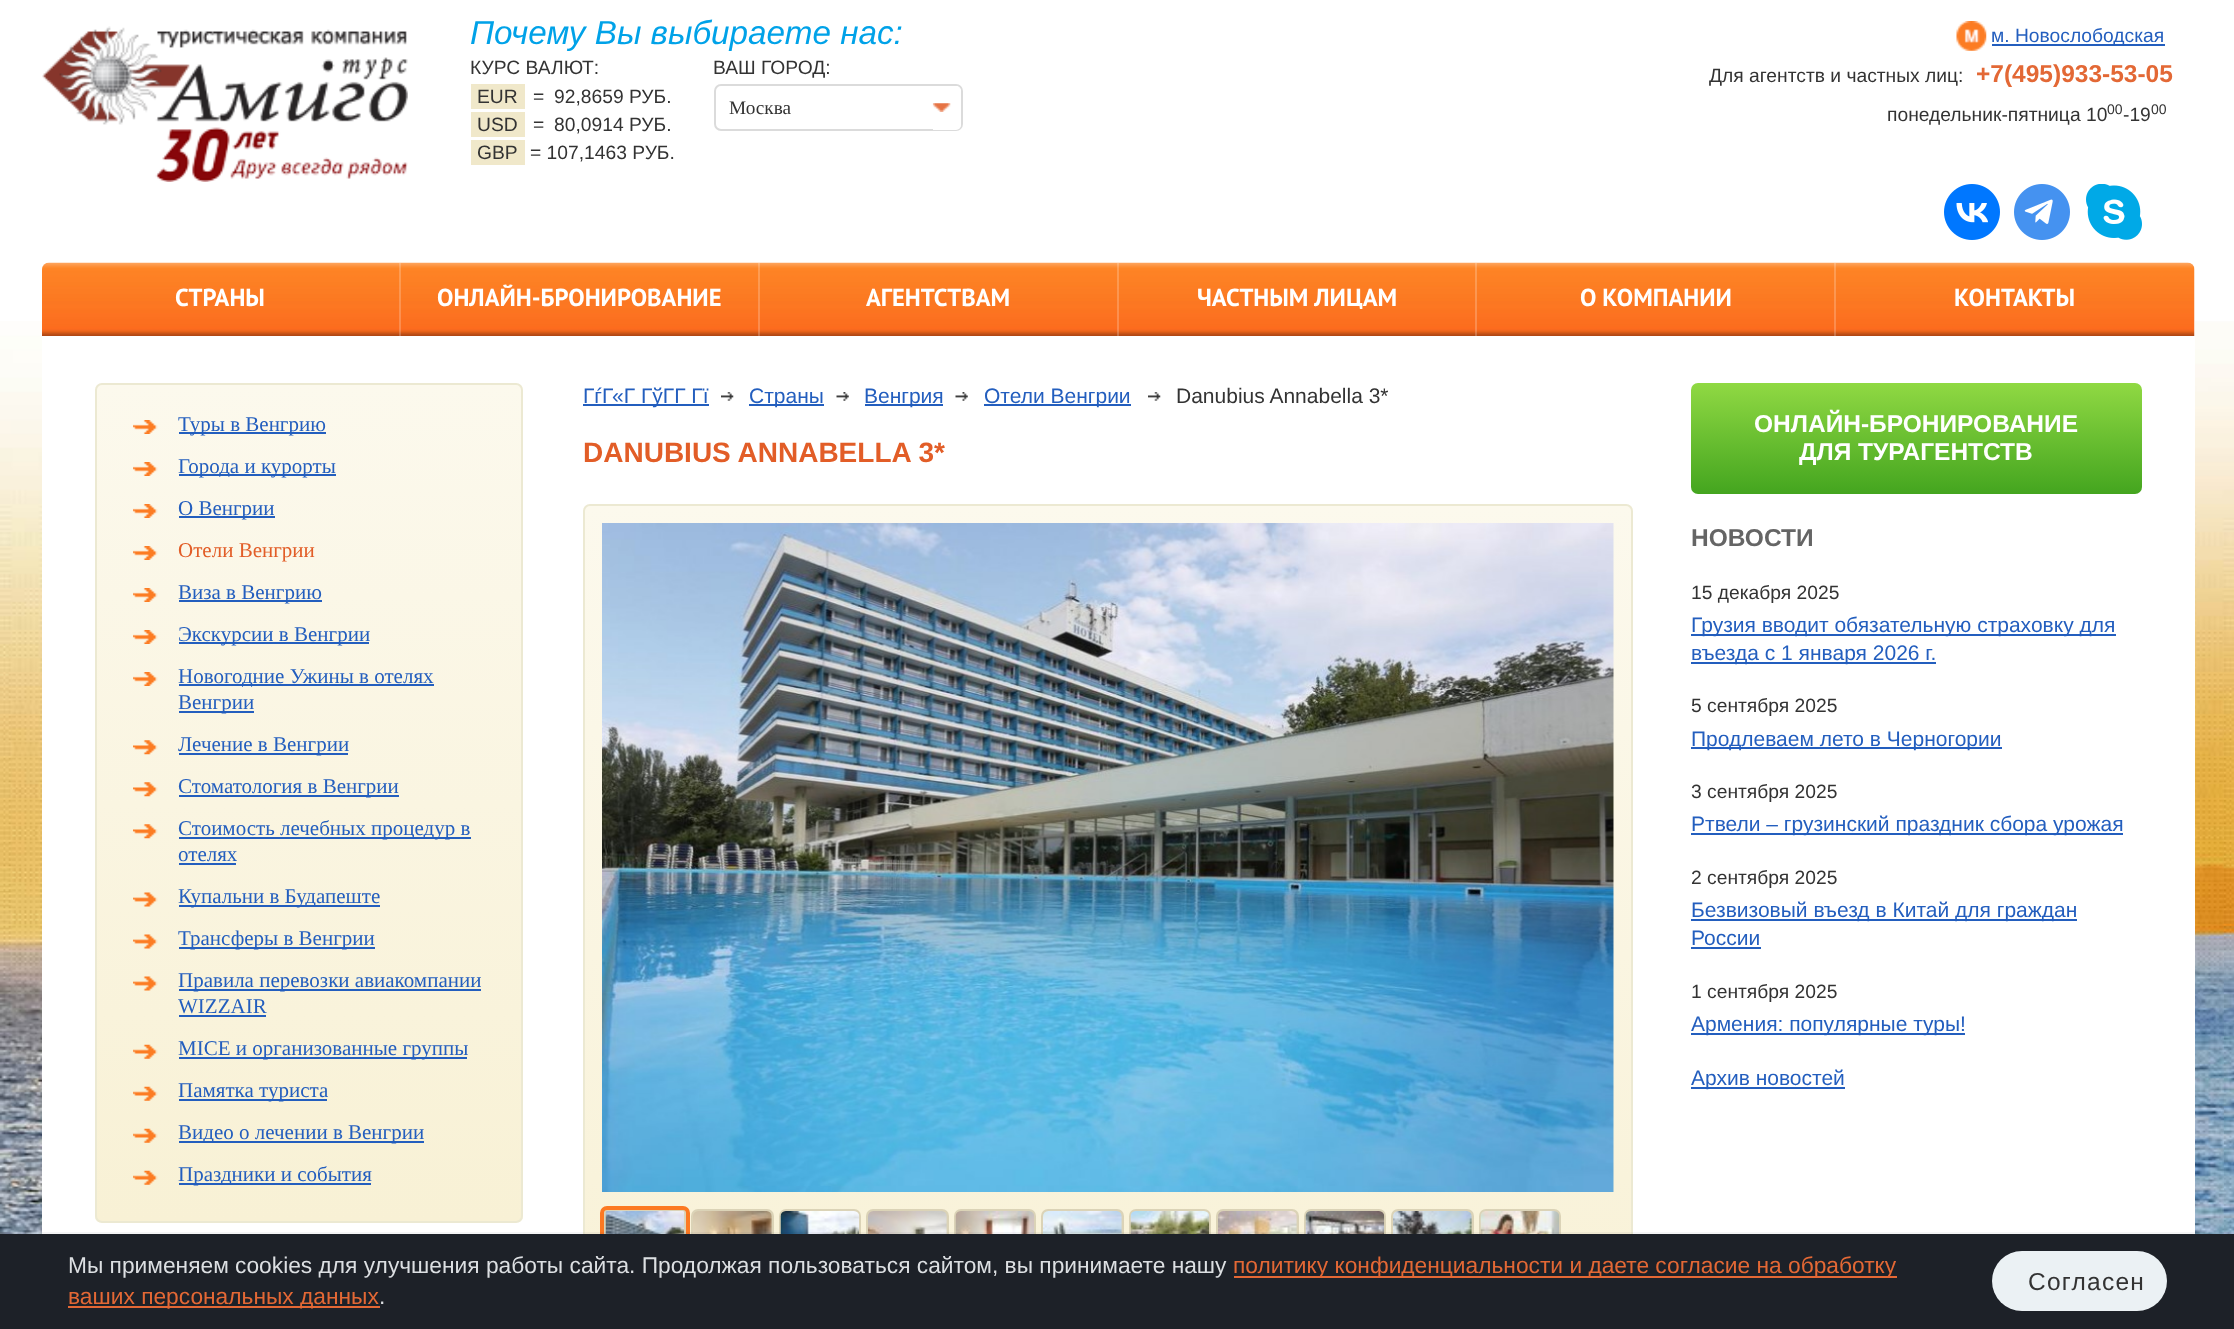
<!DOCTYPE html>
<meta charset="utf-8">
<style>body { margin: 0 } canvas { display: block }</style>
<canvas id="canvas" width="2234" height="1329"></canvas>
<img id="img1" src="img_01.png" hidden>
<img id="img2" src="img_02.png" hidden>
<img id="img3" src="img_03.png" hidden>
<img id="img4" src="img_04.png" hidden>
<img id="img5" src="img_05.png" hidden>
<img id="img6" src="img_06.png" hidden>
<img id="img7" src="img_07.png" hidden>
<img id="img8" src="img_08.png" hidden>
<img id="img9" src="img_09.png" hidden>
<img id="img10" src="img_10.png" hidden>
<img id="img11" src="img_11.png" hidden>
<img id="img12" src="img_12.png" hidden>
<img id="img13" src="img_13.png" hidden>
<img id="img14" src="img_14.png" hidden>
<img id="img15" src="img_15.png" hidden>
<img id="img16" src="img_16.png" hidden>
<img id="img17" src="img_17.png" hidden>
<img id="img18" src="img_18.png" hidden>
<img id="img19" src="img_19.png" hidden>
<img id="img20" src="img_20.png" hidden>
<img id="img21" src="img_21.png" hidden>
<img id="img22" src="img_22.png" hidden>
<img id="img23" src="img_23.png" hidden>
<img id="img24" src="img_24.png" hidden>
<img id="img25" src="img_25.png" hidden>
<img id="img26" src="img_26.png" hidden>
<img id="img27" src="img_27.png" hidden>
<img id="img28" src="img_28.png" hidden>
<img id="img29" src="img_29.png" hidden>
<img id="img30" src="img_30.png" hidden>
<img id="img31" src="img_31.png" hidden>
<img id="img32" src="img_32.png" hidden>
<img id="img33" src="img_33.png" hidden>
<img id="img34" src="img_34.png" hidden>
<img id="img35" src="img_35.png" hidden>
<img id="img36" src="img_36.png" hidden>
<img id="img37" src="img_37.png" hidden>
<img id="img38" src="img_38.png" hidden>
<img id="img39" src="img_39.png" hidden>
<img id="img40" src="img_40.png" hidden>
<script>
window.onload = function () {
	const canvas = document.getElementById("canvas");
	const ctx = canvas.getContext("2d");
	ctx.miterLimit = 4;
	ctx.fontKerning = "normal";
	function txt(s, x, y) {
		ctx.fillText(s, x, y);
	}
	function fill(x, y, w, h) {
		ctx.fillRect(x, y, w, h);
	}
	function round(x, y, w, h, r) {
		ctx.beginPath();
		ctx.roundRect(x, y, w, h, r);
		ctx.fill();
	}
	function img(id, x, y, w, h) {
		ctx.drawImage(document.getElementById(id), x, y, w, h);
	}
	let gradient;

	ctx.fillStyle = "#FFFFFF";
	fill(0, 0, 2234, 1329);
	img("img1", 0, 321, 2234, 913);
	round(42, 25, 2153, 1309, 5);
	img("img2", 42, 26, 366, 156);
	ctx.fillStyle = "#F0E8CA";
	fill(471, 84, 54, 25);
	fill(471, 112, 54, 25);
	fill(471, 140, 54, 25);
	ctx.beginPath();
	ctx.roundRect(715, 85, 247, 45, 6);
	ctx.strokeStyle = "#DBDBDB";
	ctx.lineWidth = 2;
	ctx.stroke();
	ctx.fillStyle = "#FFFFFF";
	ctx.beginPath();
	ctx.roundRect(933, 86, 28, 44, [0, 5, 5, 0]);
	ctx.fill();
	img("img3", 932, 103, 19, 9);
	img("img4", 1956, 21, 31, 30);
	ctx.fillStyle = "#235EBE";
	fill(1992, 44, 173, 2);
	img("img5", 1944, 184, 56, 56);
	img("img6", 2014, 184, 56, 56);
	img("img7", 2086, 184, 56, 56);
	img("img8", 42, 262, 2153, 74);
	ctx.fillStyle = "rgba(255, 255, 255, 0.21)";
	fill(399, 263, 2, 73);
	fill(758, 263, 2, 73);
	fill(1117, 263, 2, 73);
	fill(1475, 263, 2, 73);
	fill(1834, 263, 2, 73);
	ctx.save();
	ctx.beginPath();
	ctx.roundRect(95, 383, 428, 840, 7);
	ctx.clip();
	gradient = ctx.createLinearGradient(309, 385, 309, 1222);
	gradient.addColorStop(0, "#FCF9ED");
	gradient.addColorStop(1, "#F8F1D5");
	ctx.fillStyle = gradient;
	fill(95, 385, 428, 837);
	ctx.restore();
	ctx.beginPath();
	ctx.roundRect(96, 384, 426, 838, 6);
	ctx.strokeStyle = "#ECE9D2";
	ctx.stroke();
	img("img9", 133, 420, 25, 14);
	ctx.fillStyle = "#235EBE";
	fill(179, 432, 147, 2);
	img("img10", 133, 462, 25, 14);
	fill(179, 474, 157, 2);
	img("img11", 133, 504, 25, 14);
	fill(179, 516, 96, 2);
	img("img12", 133, 546, 25, 14);
	img("img13", 133, 588, 25, 14);
	fill(179, 600, 143, 2);
	img("img14", 133, 630, 25, 14);
	fill(179, 642, 190, 2);
	img("img15", 133, 672, 25, 14);
	fill(179, 684, 255, 2);
	fill(179, 711, 75, 2);
	img("img16", 133, 740, 25, 15);
	fill(179, 753, 169, 2);
	img("img17", 133, 782, 25, 15);
	fill(179, 795, 220, 2);
	img("img18", 133, 824, 25, 15);
	fill(179, 837, 292, 2);
	fill(179, 863, 57, 2);
	img("img19", 133, 892, 25, 15);
	fill(179, 905, 201, 2);
	img("img20", 133, 934, 25, 15);
	fill(179, 947, 196, 2);
	img("img21", 133, 976, 25, 15);
	fill(179, 989, 302, 2);
	fill(179, 1015, 87, 2);
	img("img22", 133, 1044, 25, 15);
	fill(179, 1057, 288, 2);
	img("img23", 133, 1086, 25, 15);
	fill(179, 1099, 148, 2);
	img("img24", 133, 1128, 25, 15);
	fill(179, 1141, 245, 2);
	img("img25", 133, 1170, 25, 15);
	fill(179, 1183, 192, 2);
	fill(583, 404, 126, 2);
	img("img26", 721, 392, 13, 9);
	fill(749, 404, 75, 2);
	img("img27", 836, 392, 13, 9);
	fill(865, 404, 78, 2);
	img("img28", 955, 392, 13, 9);
	fill(984, 404, 147, 2);
	img("img26", 1148, 392, 13, 9);
	ctx.save();
	ctx.beginPath();
	ctx.roundRect(583, 504, 1050, 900, 7);
	ctx.clip();
	gradient = ctx.createLinearGradient(1108, 506, 1108, 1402);
	gradient.addColorStop(0, "#FCF9ED");
	gradient.addColorStop(1, "#F8F1D5");
	ctx.fillStyle = gradient;
	fill(583, 506, 1050, 728);
	ctx.restore();
	ctx.beginPath();
	ctx.roundRect(584, 505, 1048, 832, 6);
	ctx.stroke();
	img("img29", 602, 523, 1012, 669);
	ctx.fillStyle = "#DBD3B7";
	ctx.beginPath();
	ctx.roundRect(602, 1208, 86, 85, 5);
	ctx.fill();
	ctx.strokeStyle = "#FC7922";
	ctx.lineWidth = 4;
	ctx.stroke();
	img("img30", 605, 1211, 80, 23);
	round(691, 1209, 83, 83, 7);
	img("img31", 693, 1211, 79, 23);
	round(779, 1209, 82, 83, 7);
	img("img32", 780, 1211, 80, 23);
	round(866, 1209, 83, 83, 7);
	img("img33", 868, 1211, 79, 23);
	round(954, 1209, 82, 83, 7);
	img("img34", 955, 1211, 80, 23);
	round(1041, 1209, 83, 83, 7);
	img("img35", 1043, 1211, 79, 23);
	round(1129, 1209, 82, 83, 7);
	img("img36", 1130, 1211, 80, 23);
	round(1216, 1209, 83, 83, 7);
	img("img37", 1218, 1211, 79, 23);
	round(1304, 1209, 82, 83, 7);
	img("img38", 1305, 1211, 80, 23);
	round(1391, 1209, 83, 83, 7);
	img("img39", 1393, 1211, 79, 23);
	round(1479, 1209, 82, 83, 7);
	img("img40", 1480, 1211, 80, 23);
	gradient = ctx.createLinearGradient(1916, 383, 1916, 494);
	gradient.addColorStop(0, "#90D943");
	gradient.addColorStop(1, "#44A51F");
	ctx.fillStyle = gradient;
	round(1691, 383, 451, 111, 7);
	ctx.fillStyle = "#235EBE";
	fill(1691, 634, 425, 2);
	fill(1691, 662, 245, 2);
	fill(1691, 747, 311, 2);
	fill(1691, 833, 432, 2);
	fill(1691, 919, 386, 2);
	fill(1691, 947, 70, 2);
	fill(1691, 1033, 274, 2);
	fill(1691, 1087, 154, 2);
	ctx.fillStyle = "rgba(33, 39, 53, 0.05)";
	ctx.beginPath();
	ctx.moveTo(0, 1232);
	ctx.lineTo(0, 1234);
	ctx.lineTo(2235, 1234);
	ctx.lineTo(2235, 1328);
	ctx.lineTo(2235, 1232);
	ctx.closePath();
	ctx.fill();
	ctx.fillStyle = "#1D2128";
	fill(0, 1234, 2234, 95);
	ctx.fillStyle = "#E46835";
	fill(1234, 1276, 663, 2);
	fill(68, 1306, 312, 2);
	ctx.fillStyle = "#EBF1F4";
	round(1992, 1251, 175, 60, 30);
	ctx.font = "italic 33.25px Liberation Sans";
	ctx.fillStyle = "#00A2E8";
	txt("Почему Вы выбираете нас:", 470, 44);
	ctx.font = "19.25px Liberation Sans";
	ctx.fillStyle = "#333333";
	txt("КУРС ВАЛЮТ:", 470, 74);
	txt("EUR", 477, 103);
	txt("=", 533, 103);
	txt("92,8659 РУБ.", 554, 103);
	txt("USD", 477, 131);
	txt("=", 533, 131);
	txt("80,0914 РУБ.", 554, 131);
	txt("GBP", 477, 159);
	txt("= 107,1463 РУБ.", 530, 159);
	txt("ВАШ ГОРОД:", 713, 74);
	ctx.font = "19.25px Liberation Serif";
	txt("Москва", 729, 114);
	ctx.font = "19.25px Liberation Sans";
	ctx.fillStyle = "#235EBE";
	txt("м. Новослободская", 1991, 42);
	ctx.fillStyle = "#333333";
	txt("Для агентств и частных лиц:", 1709, 82);
	ctx.font = "bold 24.5px Liberation Sans";
	ctx.fillStyle = "#E36835";
	txt("+7(495)933-53-05", 1976, 82);
	ctx.font = "19.25px Liberation Sans";
	ctx.fillStyle = "#333333";
	txt("понедельник-пятница 10", 1887, 121);
	ctx.font = "14px Liberation Sans";
	txt("00", 2107, 114);
	ctx.font = "19.25px Liberation Sans";
	txt("-19", 2123, 121);
	ctx.font = "14px Liberation Sans";
	txt("00", 2151, 114);
	ctx.font = "bold 24.5px PT Sans";
	ctx.fillStyle = "#FFFFFF";
	txt("СТРАНЫ", 175, 306);
	txt("ОНЛАЙН-БРОНИРОВАНИЕ", 437, 306);
	txt("АГЕНТСТВАМ", 866, 306);
	txt("ЧАСТНЫМ ЛИЦАМ", 1197, 306);
	txt("О КОМПАНИИ", 1580, 306);
	txt("КОНТАКТЫ", 1954, 306);
	ctx.font = "21px Liberation Serif";
	ctx.fillStyle = "#235EBE";
	txt("Туры в Венгрию", 178, 431);
	txt("Города и курорты", 178, 473);
	txt("О Венгрии", 178, 515);
	ctx.fillStyle = "#E25D27";
	txt("Отели Венгрии", 178, 557);
	ctx.fillStyle = "#235EBE";
	txt("Виза в Венгрию", 178, 599);
	txt("Экскурсии в Венгрии", 178, 641);
	txt("Новогодние Ужины в отелях", 178, 683);
	txt("Венгрии", 178, 709);
	txt("Лечение в Венгрии", 178, 751);
	txt("Стоматология в Венгрии", 178, 793);
	txt("Стоимость лечебных процедур в", 178, 835);
	txt("отелях", 178, 861);
	txt("Купальни в Будапеште", 178, 903);
	txt("Трансферы в Венгрии", 178, 945);
	txt("Правила перевозки авиакомпании", 178, 987);
	txt("WIZZAIR", 178, 1013);
	txt("MICE и организованные группы", 178, 1055);
	txt("Памятка туриста", 178, 1097);
	txt("Видео о лечении в Венгрии", 178, 1139);
	txt("Праздники и события", 178, 1181);
	ctx.font = "21px Liberation Sans";
	txt("ГѓГ«Г ГўГГ Гї", 583, 403);
	txt("Страны", 749, 403);
	txt("Венгрия", 864, 403);
	txt("Отели Венгрии", 984, 403);
	ctx.fillStyle = "#333333";
	txt("Danubius Annabella 3*", 1176, 403);
	ctx.font = "bold 28px Liberation Sans";
	ctx.fillStyle = "#E25D27";
	txt("DANUBIUS ANNABELLA 3*", 583, 462);
	ctx.font = "bold 24.5px Liberation Sans";
	ctx.fillStyle = "#FFFFFF";
	txt("ОНЛАЙН-БРОНИРОВАНИЕ", 1754, 432);
	txt("ДЛЯ ТУРАГЕНТСТВ", 1799, 460);
	ctx.fillStyle = "#656565";
	txt("НОВОСТИ", 1691, 546);
	ctx.font = "19.25px Liberation Sans";
	ctx.fillStyle = "#333333";
	txt("15 декабря 2025", 1691, 599);
	ctx.font = "21px Liberation Sans";
	ctx.fillStyle = "#235EBE";
	txt("Грузия вводит обязательную страховку для", 1691, 632);
	txt("въезда с 1 января 2026 г.", 1691, 660);
	ctx.font = "19.25px Liberation Sans";
	ctx.fillStyle = "#333333";
	txt("5 сентября 2025", 1691, 712);
	ctx.font = "21px Liberation Sans";
	ctx.fillStyle = "#235EBE";
	txt("Продлеваем лето в Черногории", 1691, 746);
	ctx.font = "19.25px Liberation Sans";
	ctx.fillStyle = "#333333";
	txt("3 сентября 2025", 1691, 798);
	ctx.font = "21px Liberation Sans";
	ctx.fillStyle = "#235EBE";
	txt("Ртвели – грузинский праздник сбора урожая", 1691, 831);
	ctx.font = "19.25px Liberation Sans";
	ctx.fillStyle = "#333333";
	txt("2 сентября 2025", 1691, 884);
	ctx.font = "21px Liberation Sans";
	ctx.fillStyle = "#235EBE";
	txt("Безвизовый въезд в Китай для граждан", 1691, 917);
	txt("России", 1691, 945);
	ctx.font = "19.25px Liberation Sans";
	ctx.fillStyle = "#333333";
	txt("1 сентября 2025", 1691, 998);
	ctx.font = "21px Liberation Sans";
	ctx.fillStyle = "#235EBE";
	txt("Армения: популярные туры!", 1691, 1031);
	txt("Архив новостей", 1691, 1085);
	ctx.font = "22.75px Liberation Sans";
	ctx.fillStyle = "#DCDFE2";
	txt("Мы применяем cookies для улучшения работы сайта. Продолжая пользоваться сайтом, вы принимаете нашу", 68, 1273);
	ctx.fillStyle = "#E36835";
	txt("политику конфиденциальности и даете согласие на обработку", 1233, 1273);
	txt("ваших персональных данных", 68, 1304);
	ctx.fillStyle = "#DCDFE2";
	txt(".", 379, 1304);
	ctx.letterSpacing = "1.25px";
	ctx.font = "24.5px Liberation Sans";
	ctx.fillStyle = "#333333";
	txt("Согласен", 2028, 1290);
};
</script>
